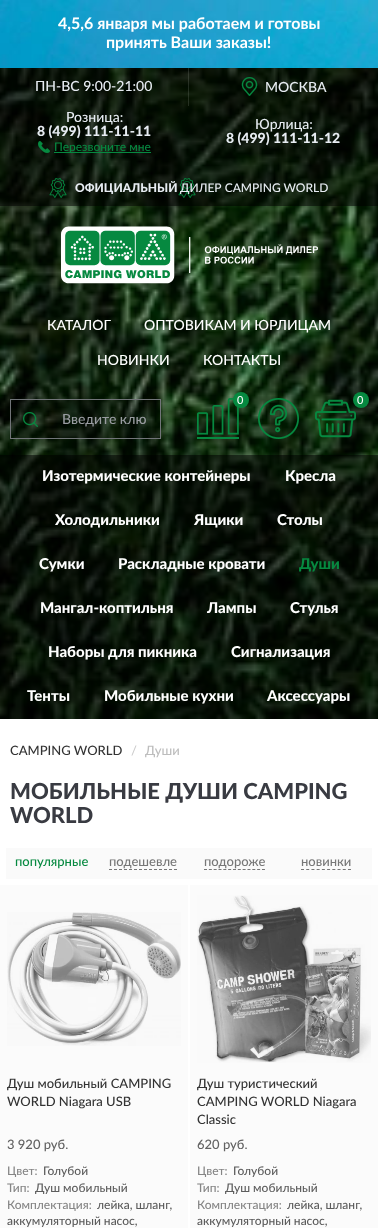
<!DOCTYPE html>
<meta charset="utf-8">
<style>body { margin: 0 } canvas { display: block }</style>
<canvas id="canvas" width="378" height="1228"></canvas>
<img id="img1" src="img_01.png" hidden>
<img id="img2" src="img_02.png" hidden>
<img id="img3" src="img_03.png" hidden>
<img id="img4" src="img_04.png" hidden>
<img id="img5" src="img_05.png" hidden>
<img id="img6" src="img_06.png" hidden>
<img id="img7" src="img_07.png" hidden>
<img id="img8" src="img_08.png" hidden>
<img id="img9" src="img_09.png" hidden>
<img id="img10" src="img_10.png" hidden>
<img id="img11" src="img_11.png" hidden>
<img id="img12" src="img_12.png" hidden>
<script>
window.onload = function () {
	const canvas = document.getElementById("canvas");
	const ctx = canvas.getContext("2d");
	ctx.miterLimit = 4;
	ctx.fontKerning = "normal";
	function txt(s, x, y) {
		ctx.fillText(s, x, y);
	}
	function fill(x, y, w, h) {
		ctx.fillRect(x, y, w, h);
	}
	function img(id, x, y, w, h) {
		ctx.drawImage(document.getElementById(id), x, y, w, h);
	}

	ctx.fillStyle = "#FFFFFF";
	fill(0, 0, 378, 1228);
	img("img1", 0, 0, 378, 68);
	img("img2", 0, 68, 378, 651);
	ctx.fillStyle = "rgba(0, 0, 0, 0.53)";
	fill(0, 68, 378, 138);
	ctx.fillStyle = "rgba(255, 255, 255, 0.12)";
	fill(188, 68, 1, 38);
	img("img3", 241, 77, 17, 19);
	img("img4", 38, 141, 12, 12);
	ctx.fillStyle = "#068940";
	fill(54, 152, 97, 1);
	img("img5", 49, 178, 147, 20);
	img("img6", 61, 226, 257, 58);
	img("img7", 197, 398, 42, 41);
	ctx.beginPath();
	ctx.arc(241, 400, 8, 0, Math.PI * 2);
	ctx.fill();
	img("img8", 258, 398, 41, 41);
	img("img9", 315, 399, 41, 39);
	ctx.beginPath();
	ctx.arc(361, 400, 8, 0, Math.PI * 2);
	ctx.fill();
	ctx.fillStyle = "rgba(0, 0, 0, 0.29)";
	fill(11, 400, 39, 38);
	img("img10", 23, 412, 15, 15);
	ctx.fillStyle = "#717478";
	fill(10, 399, 151, 1);
	fill(10, 438, 40, 1);
	fill(10, 399, 1, 40);
	ctx.fillStyle = "rgba(0, 0, 0, 0.29)";
	fill(50, 400, 110, 38);
	ctx.fillStyle = "#717478";
	fill(160, 399, 1, 40);
	fill(50, 438, 111, 1);
	ctx.fillStyle = "rgba(0, 0, 0, 0.53)";
	fill(0, 455, 378, 264);
	ctx.fillStyle = "#FAFAFA";
	fill(6, 848, 366, 31);
	ctx.beginPath();
	ctx.moveTo(109, 869.5);
	ctx.lineTo(177, 869.5);
	ctx.strokeStyle = "#777777";
	ctx.setLineDash([3, 2]);
	ctx.stroke();
	ctx.beginPath();
	ctx.moveTo(204, 869.5);
	ctx.lineTo(265, 869.5);
	ctx.setLineDash([3, 1.83]);
	ctx.stroke();
	ctx.beginPath();
	ctx.moveTo(301, 869.5);
	ctx.lineTo(351, 869.5);
	ctx.setLineDash([3, 2.22]);
	ctx.stroke();
	ctx.fillStyle = "#FBFBFB";
	fill(0, 885, 188, 343);
	img("img11", 7, 912, 174, 134);
	fill(190, 885, 188, 343);
	img("img12", 197, 895, 174, 168);
	ctx.font = "bold 16px Lato";
	ctx.fillStyle = "#FFFFFF";
	txt("4,5,6 января мы работаем и готовы", 58, 29);
	txt("принять Ваши заказы!", 106, 48);
	ctx.font = "500 14px Lato";
	ctx.fillStyle = "#E7ECF2";
	txt("ПН-ВС 9:00-21:00", 35, 91);
	txt("МОСКВА", 265, 92);
	txt("Розница:", 66, 122);
	ctx.font = "900 14px Lato";
	txt("8 (499) 111-11-11", 37, 136);
	ctx.font = "500 12px Lato";
	ctx.fillStyle = "#068940";
	txt("Перезвоните мне", 54, 151);
	ctx.font = "500 14px Lato";
	ctx.fillStyle = "#E7ECF2";
	txt("Юрлица:", 255, 129);
	ctx.font = "900 14px Lato";
	txt("8 (499) 111-11-12", 226, 143);
	ctx.font = "900 12px Lato";
	txt("ОФИЦИАЛЬНЫЙ", 75, 192);
	ctx.font = "500 12px Lato";
	txt("ДИЛЕР CAMPING WORLD", 180, 192);
	ctx.font = "500 14px Lato";
	ctx.fillStyle = "#FFFFFF";
	txt("КАТАЛОГ", 47, 330);
	txt("ОПТОВИКАМ И ЮРЛИЦАМ", 144, 330);
	txt("НОВИНКИ", 97, 365);
	txt("КОНТАКТЫ", 203, 365);
	ctx.font = "500 11px Lato";
	txt("0", 237, 404);
	txt("0", 357, 404);
	ctx.font = "500 14px Lato";
	ctx.fillStyle = "#999CA1";
	txt("Введите клю", 62, 424);
	ctx.font = "900 15px Lato";
	ctx.fillStyle = "#FFFFFF";
	txt("Изотермические контейнеры", 42, 481);
	txt("Кресла", 285, 481);
	txt("Холодильники", 55, 525);
	txt("Ящики", 194, 525);
	txt("Столы", 277, 525);
	txt("Сумки", 39, 569);
	txt("Раскладные кровати", 118, 569);
	ctx.fillStyle = "#068940";
	txt("Души", 299, 569);
	ctx.fillStyle = "#FFFFFF";
	txt("Мангал-коптильня", 40, 613);
	txt("Лампы", 207, 613);
	txt("Стулья", 290, 613);
	txt("Наборы для пикника", 48, 657);
	txt("Сигнализация", 231, 657);
	txt("Тенты", 27, 701);
	txt("Мобильные кухни", 104, 701);
	txt("Аксессуары", 267, 701);
	ctx.font = "500 13px Lato";
	ctx.fillStyle = "#333333";
	txt("CAMPING WORLD", 10, 755);
	ctx.fillStyle = "#CCCCCC";
	txt("/", 131, 755);
	ctx.fillStyle = "#BDBDBD";
	txt("Души", 145, 755);
	ctx.font = "900 22px Lato";
	ctx.fillStyle = "#393B42";
	txt("МОБИЛЬНЫЕ ДУШИ CAMPING", 10, 799);
	txt("WORLD", 10, 823);
	ctx.font = "500 13px Lato";
	ctx.fillStyle = "#068940";
	txt("популярные", 15, 866);
	ctx.fillStyle = "#777777";
	txt("подешевле", 109, 866);
	txt("подороже", 204, 866);
	txt("новинки", 301, 866);
	ctx.fillStyle = "#333333";
	txt("Душ мобильный CAMPING", 7, 1088);
	txt("WORLD Niagara USB", 7, 1106);
	ctx.fillStyle = "#626262";
	txt("3 920 руб.", 7, 1149);
	ctx.font = "500 12px Lato";
	ctx.fillStyle = "#858585";
	txt("Цвет:", 7, 1175);
	ctx.fillStyle = "#5C5C5C";
	txt("Голубой", 43, 1175);
	ctx.fillStyle = "#858585";
	txt("Тип:", 7, 1192);
	ctx.fillStyle = "#5C5C5C";
	txt("Душ мобильный", 35, 1192);
	ctx.fillStyle = "#858585";
	txt("Комплектация:", 7, 1209);
	ctx.fillStyle = "#5C5C5C";
	txt("лейка, шланг,", 97, 1209);
	txt("аккумуляторный насос,", 7, 1225);
	ctx.font = "500 13px Lato";
	ctx.fillStyle = "#333333";
	txt("Душ туристический", 197, 1088);
	txt("CAMPING WORLD Niagara", 197, 1106);
	txt("Classic", 197, 1124);
	ctx.fillStyle = "#626262";
	txt("620 руб.", 197, 1149);
	ctx.font = "500 12px Lato";
	ctx.fillStyle = "#858585";
	txt("Цвет:", 197, 1175);
	ctx.fillStyle = "#5C5C5C";
	txt("Голубой", 233, 1175);
	ctx.fillStyle = "#858585";
	txt("Тип:", 197, 1192);
	ctx.fillStyle = "#5C5C5C";
	txt("Душ мобильный", 225, 1192);
	ctx.fillStyle = "#858585";
	txt("Комплектация:", 197, 1209);
	ctx.fillStyle = "#5C5C5C";
	txt("лейка, шланг,", 287, 1209);
	txt("аккумуляторный насос,", 197, 1225);
};
</script>
